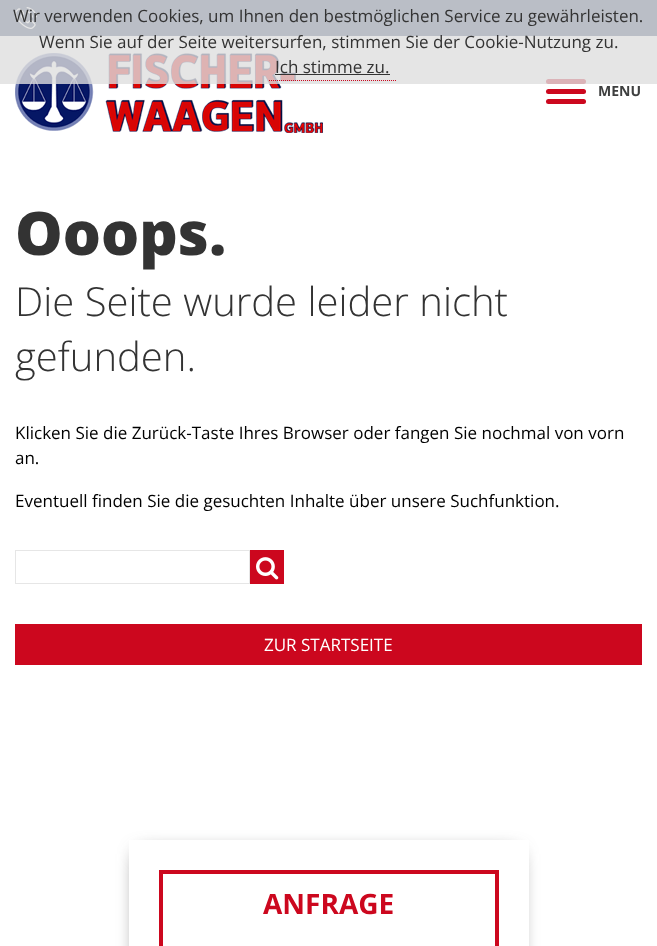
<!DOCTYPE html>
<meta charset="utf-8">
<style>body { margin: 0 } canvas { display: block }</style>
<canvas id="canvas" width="657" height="946"></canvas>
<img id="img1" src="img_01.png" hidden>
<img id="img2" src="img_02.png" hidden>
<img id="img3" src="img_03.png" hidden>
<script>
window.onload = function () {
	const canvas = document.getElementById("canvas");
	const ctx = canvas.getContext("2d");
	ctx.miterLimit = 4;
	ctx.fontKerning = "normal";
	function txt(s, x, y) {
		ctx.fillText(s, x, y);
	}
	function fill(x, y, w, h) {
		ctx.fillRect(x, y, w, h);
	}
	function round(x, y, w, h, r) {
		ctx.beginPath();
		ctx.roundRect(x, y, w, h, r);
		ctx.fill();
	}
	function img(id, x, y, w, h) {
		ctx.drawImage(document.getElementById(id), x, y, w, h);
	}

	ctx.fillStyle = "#FFFFFF";
	fill(0, 0, 657, 946);
	ctx.fillStyle = "#2B3F64";
	fill(0, 0, 657, 36);
	img("img1", 15, 7, 22, 22);
	img("img2", 15, 53, 308, 80);
	ctx.fillStyle = "#CC071E";
	round(546, 79, 40, 5, 2.5);
	ctx.fillStyle = "rgba(223, 223, 223, 0.8)";
	fill(0, 0, 657, 84);
	ctx.beginPath();
	ctx.moveTo(269, 80.5);
	ctx.lineTo(396, 80.5);
	ctx.strokeStyle = "#CC071E";
	ctx.setLineDash([1, 1]);
	ctx.stroke();
	ctx.fillStyle = "#333333";
	fill(275, 74, 115, 1);
	ctx.fillStyle = "#CC071E";
	round(546, 89, 40, 5, 2.5);
	round(546, 99, 40, 5, 2.5);
	ctx.strokeStyle = "#E6E6E6";
	ctx.setLineDash([]);
	ctx.strokeRect(15.5, 550.5, 234, 33);
	fill(250, 550, 34, 34);
	img("img3", 256, 557, 23, 23);
	fill(15, 624, 627, 41);
	ctx.save();
	ctx.beginPath();
	ctx.moveTo(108, 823);
	ctx.lineTo(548, 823);
	ctx.lineTo(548, 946);
	ctx.lineTo(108, 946);
	ctx.closePath();
	ctx.moveTo(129, 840);
	ctx.lineTo(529, 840);
	ctx.lineTo(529, 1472);
	ctx.lineTo(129, 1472);
	ctx.closePath();
	ctx.clip("evenodd");
	ctx.fillStyle = "#3E3F3F";
	ctx.filter = "blur(10px)";
	ctx.beginPath();
	ctx.rect(139, 854, 378, 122);
	ctx.fill();
	ctx.filter = "none";
	ctx.restore();
	ctx.strokeStyle = "#CC071E";
	ctx.lineWidth = 4;
	ctx.strokeRect(161, 872, 336, 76);
	ctx.font = "17px Open Sans";
	ctx.fillStyle = "#333333";
	txt("Wir verwenden Cookies, um Ihnen den bestmöglichen Service zu gewährleisten.", 13, 22);
	txt("Wenn Sie auf der Seite weitersurfen, stimmen Sie der Cookie-Nutzung zu.", 39, 48);
	txt("Ich stimme zu.", 275, 73);
	ctx.font = "bold 14px Open Sans";
	ctx.fillStyle = "#3E3F3F";
	txt("MENU", 598, 96);
	ctx.font = "800 60px Open Sans";
	ctx.fillStyle = "#333333";
	txt("Ooops.", 15, 255);
	ctx.font = "300 40px Open Sans";
	txt("Die Seite wurde leider nicht", 15, 316);
	txt("gefunden.", 15, 371);
	ctx.font = "17px Open Sans";
	ctx.fillStyle = "#000000";
	txt("Klicken Sie die Zurück-Taste Ihres Browser oder fangen Sie nochmal von vorn", 15, 439);
	txt("an.", 15, 464);
	txt("Eventuell finden Sie die gesuchten Inhalte über unsere Suchfunktion.", 15, 507);
	ctx.fillStyle = "#FFFFFF";
	txt("ZUR STARTSEITE", 264, 651);
	ctx.font = "bold 28px Open Sans";
	ctx.fillStyle = "#CC071E";
	txt("ANFRAGE", 263, 914);
};
</script>
